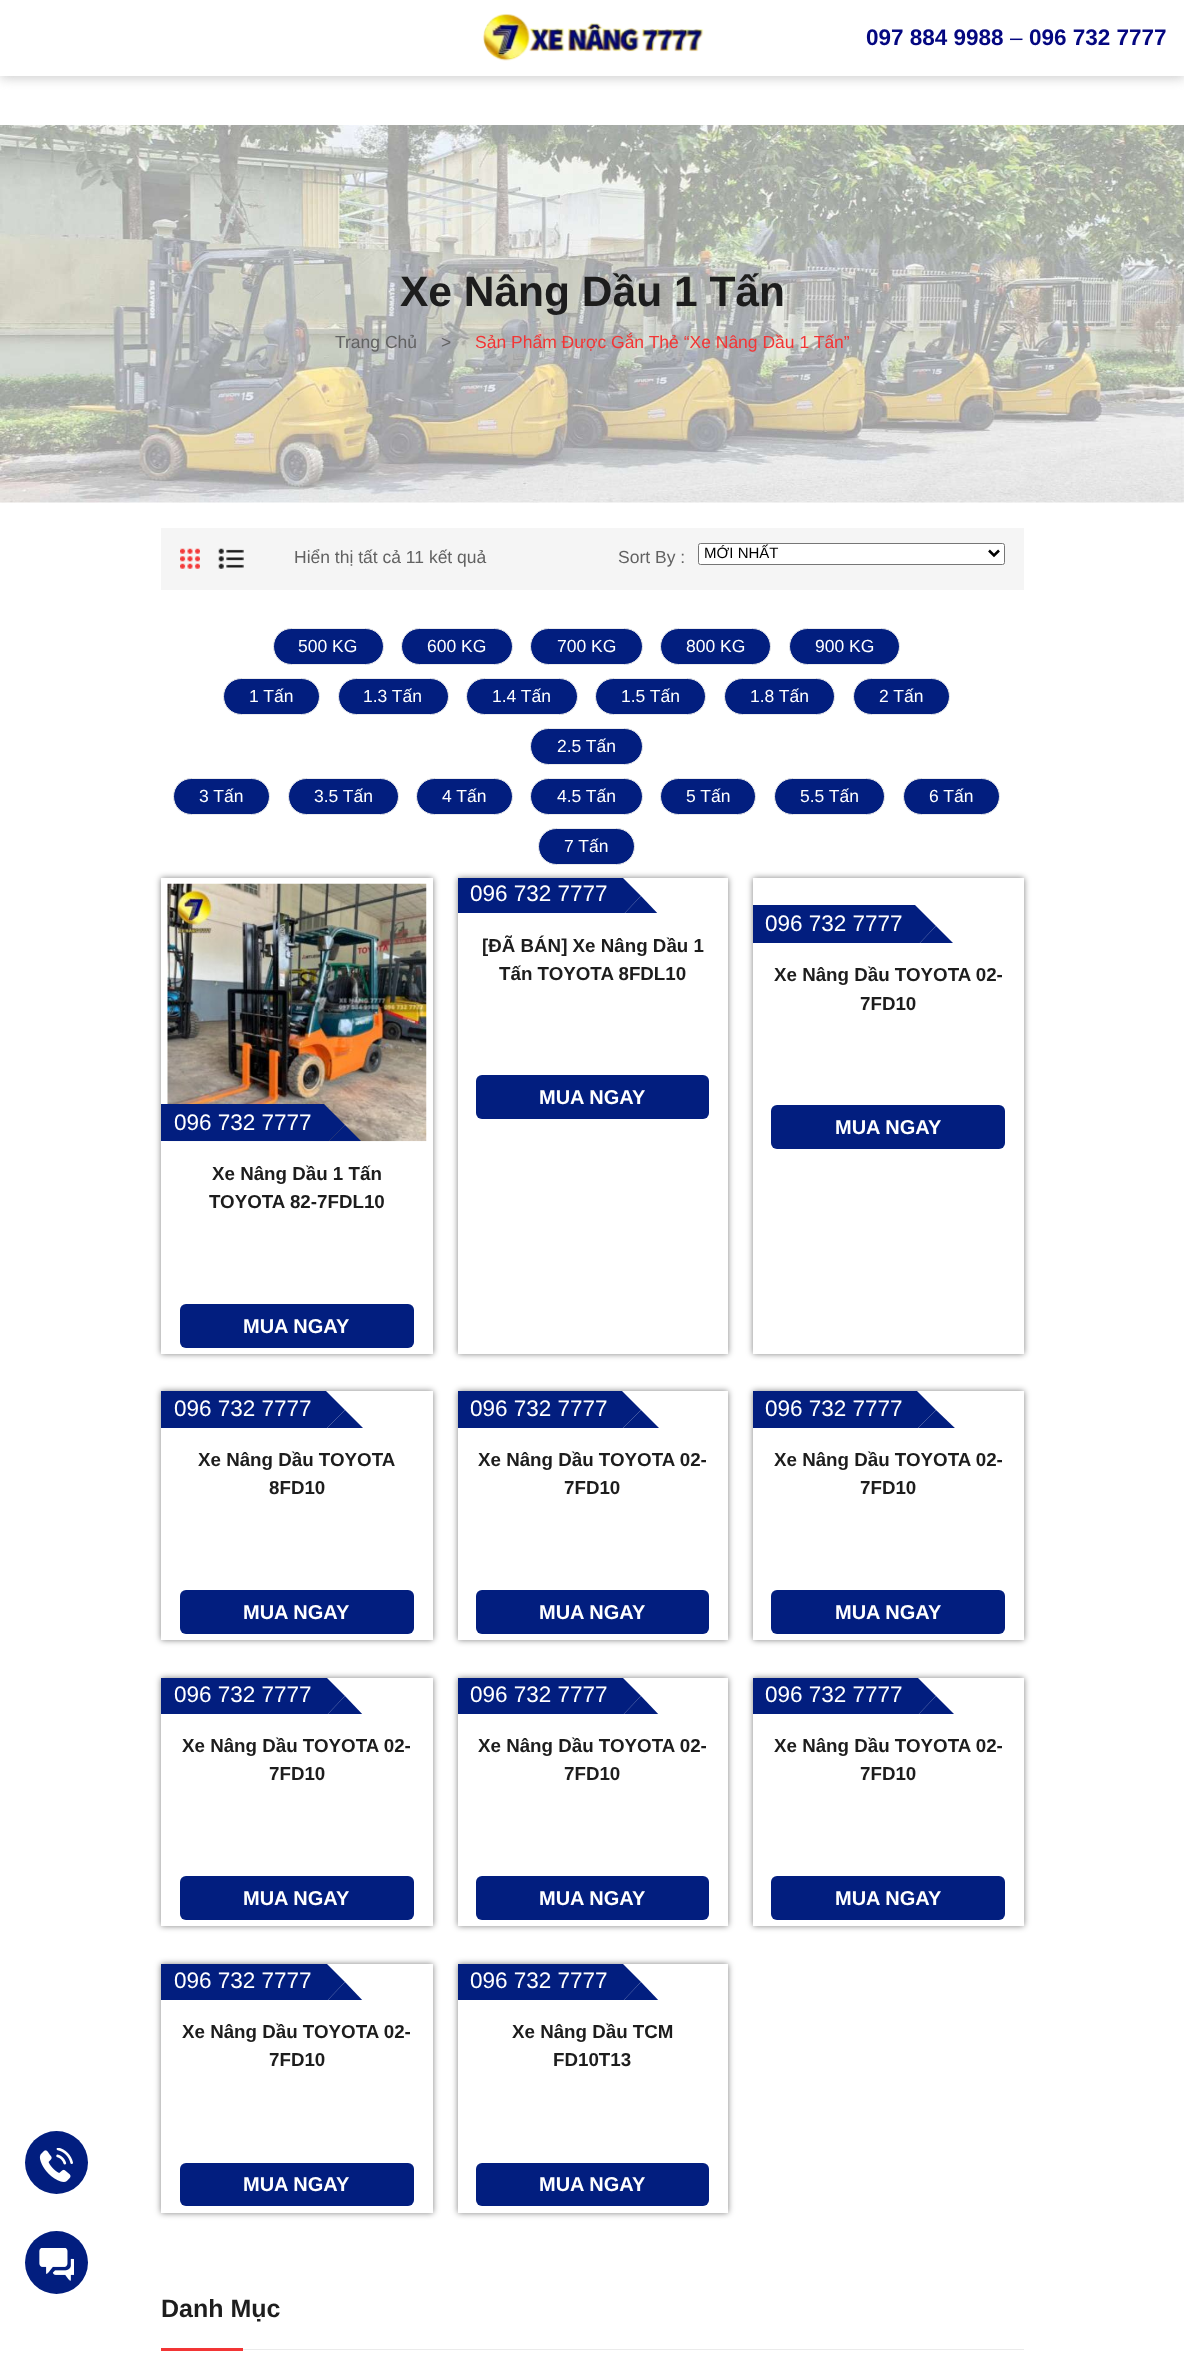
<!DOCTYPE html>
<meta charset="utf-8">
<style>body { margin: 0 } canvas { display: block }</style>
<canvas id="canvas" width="1184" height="2368"></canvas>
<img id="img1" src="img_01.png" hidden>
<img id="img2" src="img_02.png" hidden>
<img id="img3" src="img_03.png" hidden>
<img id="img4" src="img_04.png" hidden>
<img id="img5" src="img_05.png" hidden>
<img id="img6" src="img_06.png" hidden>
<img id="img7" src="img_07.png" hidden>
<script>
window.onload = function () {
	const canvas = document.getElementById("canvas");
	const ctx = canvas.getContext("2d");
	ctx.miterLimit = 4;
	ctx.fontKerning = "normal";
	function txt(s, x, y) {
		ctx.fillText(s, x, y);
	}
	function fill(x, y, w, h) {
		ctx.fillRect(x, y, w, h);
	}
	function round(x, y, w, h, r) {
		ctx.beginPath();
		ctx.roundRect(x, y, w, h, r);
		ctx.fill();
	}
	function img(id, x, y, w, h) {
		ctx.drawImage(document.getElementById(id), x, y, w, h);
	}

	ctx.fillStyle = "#FFFFFF";
	fill(0, 0, 1184, 2368);
	ctx.fillStyle = "#021E7F";
	ctx.beginPath();
	ctx.arc(56.5, 2162.5, 31.5, 0, Math.PI * 2);
	ctx.fill();
	img("img1", 39, 2148, 34, 34);
	ctx.save();
	ctx.beginPath();
	ctx.rect(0, 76, 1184, 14);
	ctx.clip();
	ctx.fillStyle = "#CCCCCC";
	ctx.filter = "blur(6px)";
	ctx.beginPath();
	ctx.rect(0, 1, 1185, 77);
	ctx.fill();
	ctx.filter = "none";
	ctx.restore();
	img("img2", 483, 13, 221, 48);
	img("img3", 0, 125, 1184, 378);
	ctx.fillStyle = "#F5F5F5";
	fill(161, 528, 863, 62);
	img("img4", 180, 548, 20, 21);
	img("img5", 218, 548, 26, 21);
	ctx.fillStyle = "#FFFFFF";
	ctx.beginPath();
	ctx.roundRect(698.5, 543.5, 306, 21, 2);
	ctx.fill();
	ctx.strokeStyle = "#767676";
	ctx.stroke();
	ctx.beginPath();
	ctx.moveTo(989, 550.5);
	ctx.lineTo(994, 555.5);
	ctx.lineTo(999, 550.5);
	ctx.strokeStyle = "#000000";
	ctx.lineWidth = 2.5;
	ctx.stroke();
	ctx.fillStyle = "#021E7F";
	ctx.beginPath();
	ctx.roundRect(273.5, 628.5, 110, 36, 18);
	ctx.fill();
	ctx.strokeStyle = "#EBEBEB";
	ctx.lineWidth = 1;
	ctx.stroke();
	ctx.beginPath();
	ctx.roundRect(401.5, 628.5, 111, 36, 18);
	ctx.fill();
	ctx.stroke();
	ctx.beginPath();
	ctx.roundRect(530.5, 628.5, 112, 36, 18);
	ctx.fill();
	ctx.stroke();
	ctx.beginPath();
	ctx.roundRect(660.5, 628.5, 110, 36, 18);
	ctx.fill();
	ctx.stroke();
	ctx.beginPath();
	ctx.roundRect(789.5, 628.5, 110, 36, 18);
	ctx.fill();
	ctx.stroke();
	ctx.beginPath();
	ctx.roundRect(223.5, 678.5, 96, 36, 18);
	ctx.fill();
	ctx.stroke();
	ctx.beginPath();
	ctx.roundRect(338.5, 678.5, 110, 36, 18);
	ctx.fill();
	ctx.stroke();
	ctx.beginPath();
	ctx.roundRect(466.5, 678.5, 111, 36, 18);
	ctx.fill();
	ctx.stroke();
	ctx.beginPath();
	ctx.roundRect(595.5, 678.5, 110, 36, 18);
	ctx.fill();
	ctx.stroke();
	ctx.beginPath();
	ctx.roundRect(724.5, 678.5, 110, 36, 18);
	ctx.fill();
	ctx.stroke();
	ctx.beginPath();
	ctx.roundRect(853.5, 678.5, 96, 36, 18);
	ctx.fill();
	ctx.stroke();
	ctx.beginPath();
	ctx.roundRect(530.5, 728.5, 112, 36, 18);
	ctx.fill();
	ctx.stroke();
	ctx.beginPath();
	ctx.roundRect(173.5, 778.5, 96, 36, 18);
	ctx.fill();
	ctx.stroke();
	ctx.beginPath();
	ctx.roundRect(288.5, 778.5, 110, 36, 18);
	ctx.fill();
	ctx.stroke();
	ctx.beginPath();
	ctx.roundRect(416.5, 778.5, 96, 36, 18);
	ctx.fill();
	ctx.stroke();
	ctx.beginPath();
	ctx.roundRect(530.5, 778.5, 112, 36, 18);
	ctx.fill();
	ctx.stroke();
	ctx.beginPath();
	ctx.roundRect(660.5, 778.5, 95, 36, 18);
	ctx.fill();
	ctx.stroke();
	ctx.beginPath();
	ctx.roundRect(774.5, 778.5, 110, 36, 18);
	ctx.fill();
	ctx.stroke();
	ctx.beginPath();
	ctx.roundRect(903.5, 778.5, 96, 36, 18);
	ctx.fill();
	ctx.stroke();
	ctx.beginPath();
	ctx.roundRect(538.5, 828.5, 96, 36, 18);
	ctx.fill();
	ctx.stroke();
	ctx.save();
	ctx.beginPath();
	ctx.moveTo(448, 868);
	ctx.lineTo(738, 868);
	ctx.lineTo(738, 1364);
	ctx.lineTo(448, 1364);
	ctx.closePath();
	ctx.moveTo(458, 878);
	ctx.lineTo(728, 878);
	ctx.lineTo(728, 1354);
	ctx.lineTo(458, 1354);
	ctx.closePath();
	ctx.clip("evenodd");
	ctx.fillStyle = "rgba(0, 0, 0, 0.5)";
	ctx.filter = "blur(3px)";
	ctx.beginPath();
	ctx.rect(458, 878, 270, 476);
	ctx.fill();
	ctx.filter = "none";
	ctx.restore();
	fill(458, 878, 162, 35);
	ctx.save();
	ctx.beginPath();
	ctx.rect(458, 878, 270, 35);
	ctx.clip();
	ctx.beginPath();
	ctx.moveTo(662, 918);
	ctx.lineTo(620, 918);
	ctx.lineTo(641, 896);
	ctx.closePath();
	ctx.fill();
	ctx.beginPath();
	ctx.moveTo(620, 918);
	ctx.lineTo(620, 875);
	ctx.lineTo(641, 896);
	ctx.closePath();
	ctx.fill();
	ctx.restore();
	round(476, 1075, 233, 44, 6);
	ctx.save();
	ctx.beginPath();
	ctx.moveTo(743, 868);
	ctx.lineTo(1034, 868);
	ctx.lineTo(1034, 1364);
	ctx.lineTo(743, 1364);
	ctx.closePath();
	ctx.moveTo(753, 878);
	ctx.lineTo(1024, 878);
	ctx.lineTo(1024, 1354);
	ctx.lineTo(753, 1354);
	ctx.closePath();
	ctx.clip("evenodd");
	ctx.fillStyle = "rgba(0, 0, 0, 0.5)";
	ctx.filter = "blur(3px)";
	ctx.beginPath();
	ctx.rect(753, 878, 271, 476);
	ctx.fill();
	ctx.filter = "none";
	ctx.restore();
	fill(753, 905, 162, 38);
	ctx.save();
	ctx.beginPath();
	ctx.rect(753, 878, 271, 65);
	ctx.clip();
	ctx.beginPath();
	ctx.moveTo(958, 948);
	ctx.lineTo(915, 948);
	ctx.lineTo(936, 926);
	ctx.closePath();
	ctx.fill();
	ctx.beginPath();
	ctx.moveTo(915, 948);
	ctx.lineTo(915, 905);
	ctx.lineTo(936, 926);
	ctx.closePath();
	ctx.fill();
	ctx.restore();
	round(771, 1105, 234, 44, 6);
	ctx.save();
	ctx.beginPath();
	ctx.moveTo(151, 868);
	ctx.lineTo(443, 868);
	ctx.lineTo(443, 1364);
	ctx.lineTo(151, 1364);
	ctx.closePath();
	ctx.moveTo(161, 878);
	ctx.lineTo(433, 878);
	ctx.lineTo(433, 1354);
	ctx.lineTo(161, 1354);
	ctx.closePath();
	ctx.clip("evenodd");
	ctx.fillStyle = "rgba(0, 0, 0, 0.5)";
	ctx.filter = "blur(3px)";
	ctx.beginPath();
	ctx.rect(161, 878, 272, 476);
	ctx.fill();
	ctx.filter = "none";
	ctx.restore();
	img("img6", 167, 883, 260, 259);
	fill(161, 1104, 163, 37);
	ctx.save();
	ctx.beginPath();
	ctx.rect(161, 878, 272, 263);
	ctx.clip();
	ctx.beginPath();
	ctx.moveTo(366, 1146);
	ctx.lineTo(324, 1146);
	ctx.lineTo(345, 1125);
	ctx.closePath();
	ctx.fill();
	ctx.beginPath();
	ctx.moveTo(324, 1146);
	ctx.lineTo(324, 1104);
	ctx.lineTo(345, 1125);
	ctx.closePath();
	ctx.fill();
	ctx.restore();
	round(180, 1304, 234, 44, 6);
	ctx.save();
	ctx.beginPath();
	ctx.moveTo(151, 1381);
	ctx.lineTo(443, 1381);
	ctx.lineTo(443, 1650);
	ctx.lineTo(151, 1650);
	ctx.closePath();
	ctx.moveTo(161, 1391);
	ctx.lineTo(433, 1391);
	ctx.lineTo(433, 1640);
	ctx.lineTo(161, 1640);
	ctx.closePath();
	ctx.clip("evenodd");
	ctx.fillStyle = "rgba(0, 0, 0, 0.5)";
	ctx.filter = "blur(3px)";
	ctx.beginPath();
	ctx.rect(161, 1391, 272, 249);
	ctx.fill();
	ctx.filter = "none";
	ctx.restore();
	fill(161, 1391, 163, 37);
	ctx.save();
	ctx.beginPath();
	ctx.rect(161, 1391, 272, 37);
	ctx.clip();
	ctx.beginPath();
	ctx.moveTo(366, 1431);
	ctx.lineTo(324, 1431);
	ctx.lineTo(345, 1410);
	ctx.closePath();
	ctx.fill();
	ctx.beginPath();
	ctx.moveTo(324, 1431);
	ctx.lineTo(324, 1389);
	ctx.lineTo(345, 1410);
	ctx.closePath();
	ctx.fill();
	ctx.restore();
	round(180, 1590, 234, 44, 6);
	ctx.save();
	ctx.beginPath();
	ctx.moveTo(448, 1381);
	ctx.lineTo(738, 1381);
	ctx.lineTo(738, 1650);
	ctx.lineTo(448, 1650);
	ctx.closePath();
	ctx.moveTo(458, 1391);
	ctx.lineTo(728, 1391);
	ctx.lineTo(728, 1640);
	ctx.lineTo(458, 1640);
	ctx.closePath();
	ctx.clip("evenodd");
	ctx.fillStyle = "rgba(0, 0, 0, 0.5)";
	ctx.filter = "blur(3px)";
	ctx.beginPath();
	ctx.rect(458, 1391, 270, 249);
	ctx.fill();
	ctx.filter = "none";
	ctx.restore();
	fill(458, 1391, 162, 37);
	ctx.save();
	ctx.beginPath();
	ctx.rect(458, 1391, 270, 37);
	ctx.clip();
	ctx.beginPath();
	ctx.moveTo(662, 1431);
	ctx.lineTo(620, 1431);
	ctx.lineTo(641, 1410);
	ctx.closePath();
	ctx.fill();
	ctx.beginPath();
	ctx.moveTo(620, 1431);
	ctx.lineTo(620, 1389);
	ctx.lineTo(641, 1410);
	ctx.closePath();
	ctx.fill();
	ctx.restore();
	round(476, 1590, 233, 44, 6);
	ctx.save();
	ctx.beginPath();
	ctx.moveTo(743, 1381);
	ctx.lineTo(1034, 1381);
	ctx.lineTo(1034, 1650);
	ctx.lineTo(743, 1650);
	ctx.closePath();
	ctx.moveTo(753, 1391);
	ctx.lineTo(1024, 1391);
	ctx.lineTo(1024, 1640);
	ctx.lineTo(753, 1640);
	ctx.closePath();
	ctx.clip("evenodd");
	ctx.fillStyle = "rgba(0, 0, 0, 0.5)";
	ctx.filter = "blur(3px)";
	ctx.beginPath();
	ctx.rect(753, 1391, 271, 249);
	ctx.fill();
	ctx.filter = "none";
	ctx.restore();
	fill(753, 1391, 162, 37);
	ctx.save();
	ctx.beginPath();
	ctx.rect(753, 1391, 271, 37);
	ctx.clip();
	ctx.beginPath();
	ctx.moveTo(958, 1431);
	ctx.lineTo(915, 1431);
	ctx.lineTo(936, 1410);
	ctx.closePath();
	ctx.fill();
	ctx.beginPath();
	ctx.moveTo(915, 1431);
	ctx.lineTo(915, 1389);
	ctx.lineTo(936, 1410);
	ctx.closePath();
	ctx.fill();
	ctx.restore();
	round(771, 1590, 234, 44, 6);
	ctx.save();
	ctx.beginPath();
	ctx.moveTo(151, 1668);
	ctx.lineTo(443, 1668);
	ctx.lineTo(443, 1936);
	ctx.lineTo(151, 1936);
	ctx.closePath();
	ctx.moveTo(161, 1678);
	ctx.lineTo(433, 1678);
	ctx.lineTo(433, 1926);
	ctx.lineTo(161, 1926);
	ctx.closePath();
	ctx.clip("evenodd");
	ctx.fillStyle = "rgba(0, 0, 0, 0.5)";
	ctx.filter = "blur(3px)";
	ctx.beginPath();
	ctx.rect(161, 1678, 272, 248);
	ctx.fill();
	ctx.filter = "none";
	ctx.restore();
	fill(161, 1678, 163, 36);
	ctx.save();
	ctx.beginPath();
	ctx.rect(161, 1678, 272, 36);
	ctx.clip();
	ctx.beginPath();
	ctx.moveTo(366, 1718);
	ctx.lineTo(324, 1718);
	ctx.lineTo(345, 1696);
	ctx.closePath();
	ctx.fill();
	ctx.beginPath();
	ctx.moveTo(324, 1718);
	ctx.lineTo(324, 1675);
	ctx.lineTo(345, 1696);
	ctx.closePath();
	ctx.fill();
	ctx.restore();
	round(180, 1876, 234, 44, 6);
	ctx.save();
	ctx.beginPath();
	ctx.moveTo(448, 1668);
	ctx.lineTo(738, 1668);
	ctx.lineTo(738, 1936);
	ctx.lineTo(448, 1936);
	ctx.closePath();
	ctx.moveTo(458, 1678);
	ctx.lineTo(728, 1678);
	ctx.lineTo(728, 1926);
	ctx.lineTo(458, 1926);
	ctx.closePath();
	ctx.clip("evenodd");
	ctx.fillStyle = "rgba(0, 0, 0, 0.5)";
	ctx.filter = "blur(3px)";
	ctx.beginPath();
	ctx.rect(458, 1678, 270, 248);
	ctx.fill();
	ctx.filter = "none";
	ctx.restore();
	fill(458, 1678, 162, 36);
	ctx.save();
	ctx.beginPath();
	ctx.rect(458, 1678, 270, 36);
	ctx.clip();
	ctx.beginPath();
	ctx.moveTo(662, 1718);
	ctx.lineTo(620, 1718);
	ctx.lineTo(641, 1696);
	ctx.closePath();
	ctx.fill();
	ctx.beginPath();
	ctx.moveTo(620, 1718);
	ctx.lineTo(620, 1675);
	ctx.lineTo(641, 1696);
	ctx.closePath();
	ctx.fill();
	ctx.restore();
	round(476, 1876, 233, 44, 6);
	ctx.save();
	ctx.beginPath();
	ctx.moveTo(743, 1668);
	ctx.lineTo(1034, 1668);
	ctx.lineTo(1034, 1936);
	ctx.lineTo(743, 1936);
	ctx.closePath();
	ctx.moveTo(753, 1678);
	ctx.lineTo(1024, 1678);
	ctx.lineTo(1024, 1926);
	ctx.lineTo(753, 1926);
	ctx.closePath();
	ctx.clip("evenodd");
	ctx.fillStyle = "rgba(0, 0, 0, 0.5)";
	ctx.filter = "blur(3px)";
	ctx.beginPath();
	ctx.rect(753, 1678, 271, 248);
	ctx.fill();
	ctx.filter = "none";
	ctx.restore();
	fill(753, 1678, 162, 36);
	ctx.save();
	ctx.beginPath();
	ctx.rect(753, 1678, 271, 36);
	ctx.clip();
	ctx.beginPath();
	ctx.moveTo(958, 1718);
	ctx.lineTo(915, 1718);
	ctx.lineTo(936, 1696);
	ctx.closePath();
	ctx.fill();
	ctx.beginPath();
	ctx.moveTo(915, 1718);
	ctx.lineTo(915, 1675);
	ctx.lineTo(936, 1696);
	ctx.closePath();
	ctx.fill();
	ctx.restore();
	round(771, 1876, 234, 44, 6);
	ctx.save();
	ctx.beginPath();
	ctx.moveTo(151, 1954);
	ctx.lineTo(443, 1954);
	ctx.lineTo(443, 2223);
	ctx.lineTo(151, 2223);
	ctx.closePath();
	ctx.moveTo(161, 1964);
	ctx.lineTo(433, 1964);
	ctx.lineTo(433, 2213);
	ctx.lineTo(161, 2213);
	ctx.closePath();
	ctx.clip("evenodd");
	ctx.fillStyle = "rgba(0, 0, 0, 0.5)";
	ctx.filter = "blur(3px)";
	ctx.beginPath();
	ctx.rect(161, 1964, 272, 249);
	ctx.fill();
	ctx.filter = "none";
	ctx.restore();
	fill(161, 1964, 163, 36);
	ctx.save();
	ctx.beginPath();
	ctx.rect(161, 1964, 272, 36);
	ctx.clip();
	ctx.beginPath();
	ctx.moveTo(366, 2004);
	ctx.lineTo(324, 2004);
	ctx.lineTo(345, 1982);
	ctx.closePath();
	ctx.fill();
	ctx.beginPath();
	ctx.moveTo(324, 2004);
	ctx.lineTo(324, 1961);
	ctx.lineTo(345, 1982);
	ctx.closePath();
	ctx.fill();
	ctx.restore();
	round(180, 2163, 234, 43, 6);
	ctx.save();
	ctx.beginPath();
	ctx.moveTo(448, 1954);
	ctx.lineTo(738, 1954);
	ctx.lineTo(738, 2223);
	ctx.lineTo(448, 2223);
	ctx.closePath();
	ctx.moveTo(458, 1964);
	ctx.lineTo(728, 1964);
	ctx.lineTo(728, 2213);
	ctx.lineTo(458, 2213);
	ctx.closePath();
	ctx.clip("evenodd");
	ctx.fillStyle = "rgba(0, 0, 0, 0.5)";
	ctx.filter = "blur(3px)";
	ctx.beginPath();
	ctx.rect(458, 1964, 270, 249);
	ctx.fill();
	ctx.filter = "none";
	ctx.restore();
	fill(458, 1964, 162, 36);
	ctx.save();
	ctx.beginPath();
	ctx.rect(458, 1964, 270, 36);
	ctx.clip();
	ctx.beginPath();
	ctx.moveTo(662, 2004);
	ctx.lineTo(620, 2004);
	ctx.lineTo(641, 1982);
	ctx.closePath();
	ctx.fill();
	ctx.beginPath();
	ctx.moveTo(620, 2004);
	ctx.lineTo(620, 1961);
	ctx.lineTo(641, 1982);
	ctx.closePath();
	ctx.fill();
	ctx.restore();
	round(476, 2163, 233, 43, 6);
	ctx.fillStyle = "#EBEBEB";
	fill(243, 2349, 781, 1);
	ctx.fillStyle = "#F33535";
	fill(161, 2348, 82, 3);
	ctx.fillStyle = "#021E7F";
	ctx.beginPath();
	ctx.arc(56.5, 2262.5, 31.5, 0, Math.PI * 2);
	ctx.fill();
	img("img7", 39, 2248, 35, 33);
	ctx.font = "bold 22.5px Liberation Sans";
	ctx.fillStyle = "#040780";
	txt("097 884 9988", 866, 45);
	ctx.font = "22.5px Liberation Sans";
	txt("–", 1010, 45);
	ctx.font = "bold 22.5px Liberation Sans";
	txt("096 732 7777", 1029, 45);
	ctx.font = "bold 42.5px Liberation Sans";
	ctx.fillStyle = "#1D1D1D";
	txt("Xe Nâng Dầu 1 Tấn", 400, 306);
	ctx.font = "17.5px Liberation Sans";
	ctx.fillStyle = "#626262";
	txt("Trang Chủ", 335, 348);
	txt(">", 441, 348);
	ctx.fillStyle = "#F33535";
	txt("Sản Phẩm Được Gắn Thẻ “Xe Nâng Dầu 1 Tấn”", 475, 348);
	ctx.fillStyle = "#626262";
	txt("Hiển thị tất cả 11 kết quả", 294, 563);
	txt("Sort By :", 618, 563);
	ctx.font = "15px Liberation Sans";
	ctx.fillStyle = "#000000";
	txt("MỚI NHẤT", 704, 558);
	ctx.font = "17.5px Liberation Sans";
	ctx.fillStyle = "#FFFFFF";
	txt("500 KG", 298, 652);
	txt("600 KG", 427, 652);
	txt("700 KG", 557, 652);
	txt("800 KG", 686, 652);
	txt("900 KG", 815, 652);
	txt("1 Tấn", 249, 702);
	txt("1.3 Tấn", 363, 702);
	txt("1.4 Tấn", 492, 702);
	txt("1.5 Tấn", 621, 702);
	txt("1.8 Tấn", 750, 702);
	txt("2 Tấn", 879, 702);
	txt("2.5 Tấn", 557, 752);
	txt("3 Tấn", 199, 802);
	txt("3.5 Tấn", 314, 802);
	txt("4 Tấn", 442, 802);
	txt("4.5 Tấn", 557, 802);
	txt("5 Tấn", 686, 802);
	txt("5.5 Tấn", 800, 802);
	txt("6 Tấn", 929, 802);
	txt("7 Tấn", 564, 852);
	ctx.font = "22.5px Liberation Sans";
	txt("096 732 7777", 470, 901);
	ctx.font = "bold 18.75px Liberation Sans";
	ctx.fillStyle = "#1D1D1D";
	txt("[ĐÃ BÁN] Xe Nâng Dầu 1", 482, 952);
	txt("Tấn TOYOTA 8FDL10", 499, 980);
	ctx.font = "bold 20px Liberation Sans";
	ctx.fillStyle = "#FFFFFF";
	txt("MUA NGAY", 539, 1104);
	ctx.font = "22.5px Liberation Sans";
	txt("096 732 7777", 765, 931);
	ctx.font = "bold 18.75px Liberation Sans";
	ctx.fillStyle = "#1D1D1D";
	txt("Xe Nâng Dầu TOYOTA 02-", 774, 981);
	txt("7FD10", 860, 1010);
	ctx.font = "bold 20px Liberation Sans";
	ctx.fillStyle = "#FFFFFF";
	txt("MUA NGAY", 835, 1134);
	ctx.font = "22.5px Liberation Sans";
	txt("096 732 7777", 174, 1130);
	ctx.font = "bold 18.75px Liberation Sans";
	ctx.fillStyle = "#1D1D1D";
	txt("Xe Nâng Dầu 1 Tấn", 212, 1180);
	txt("TOYOTA 82-7FDL10", 209, 1208);
	ctx.font = "bold 20px Liberation Sans";
	ctx.fillStyle = "#FFFFFF";
	txt("MUA NGAY", 243, 1333);
	ctx.font = "22.5px Liberation Sans";
	txt("096 732 7777", 174, 1416);
	ctx.font = "bold 18.75px Liberation Sans";
	ctx.fillStyle = "#1D1D1D";
	txt("Xe Nâng Dầu TOYOTA", 198, 1466);
	txt("8FD10", 269, 1494);
	ctx.font = "bold 20px Liberation Sans";
	ctx.fillStyle = "#FFFFFF";
	txt("MUA NGAY", 243, 1619);
	ctx.font = "22.5px Liberation Sans";
	txt("096 732 7777", 470, 1416);
	ctx.font = "bold 18.75px Liberation Sans";
	ctx.fillStyle = "#1D1D1D";
	txt("Xe Nâng Dầu TOYOTA 02-", 478, 1466);
	txt("7FD10", 564, 1494);
	ctx.font = "bold 20px Liberation Sans";
	ctx.fillStyle = "#FFFFFF";
	txt("MUA NGAY", 539, 1619);
	ctx.font = "22.5px Liberation Sans";
	txt("096 732 7777", 765, 1416);
	ctx.font = "bold 18.75px Liberation Sans";
	ctx.fillStyle = "#1D1D1D";
	txt("Xe Nâng Dầu TOYOTA 02-", 774, 1466);
	txt("7FD10", 860, 1494);
	ctx.font = "bold 20px Liberation Sans";
	ctx.fillStyle = "#FFFFFF";
	txt("MUA NGAY", 835, 1619);
	ctx.font = "22.5px Liberation Sans";
	txt("096 732 7777", 174, 1702);
	ctx.font = "bold 18.75px Liberation Sans";
	ctx.fillStyle = "#1D1D1D";
	txt("Xe Nâng Dầu TOYOTA 02-", 182, 1752);
	txt("7FD10", 269, 1780);
	ctx.font = "bold 20px Liberation Sans";
	ctx.fillStyle = "#FFFFFF";
	txt("MUA NGAY", 243, 1905);
	ctx.font = "22.5px Liberation Sans";
	txt("096 732 7777", 470, 1702);
	ctx.font = "bold 18.75px Liberation Sans";
	ctx.fillStyle = "#1D1D1D";
	txt("Xe Nâng Dầu TOYOTA 02-", 478, 1752);
	txt("7FD10", 564, 1780);
	ctx.font = "bold 20px Liberation Sans";
	ctx.fillStyle = "#FFFFFF";
	txt("MUA NGAY", 539, 1905);
	ctx.font = "22.5px Liberation Sans";
	txt("096 732 7777", 765, 1702);
	ctx.font = "bold 18.75px Liberation Sans";
	ctx.fillStyle = "#1D1D1D";
	txt("Xe Nâng Dầu TOYOTA 02-", 774, 1752);
	txt("7FD10", 860, 1780);
	ctx.font = "bold 20px Liberation Sans";
	ctx.fillStyle = "#FFFFFF";
	txt("MUA NGAY", 835, 1905);
	ctx.font = "22.5px Liberation Sans";
	txt("096 732 7777", 174, 1988);
	ctx.font = "bold 18.75px Liberation Sans";
	ctx.fillStyle = "#1D1D1D";
	txt("Xe Nâng Dầu TOYOTA 02-", 182, 2038);
	txt("7FD10", 269, 2066);
	ctx.font = "bold 20px Liberation Sans";
	ctx.fillStyle = "#FFFFFF";
	txt("MUA NGAY", 243, 2191);
	ctx.font = "22.5px Liberation Sans";
	txt("096 732 7777", 470, 1988);
	ctx.font = "bold 18.75px Liberation Sans";
	ctx.fillStyle = "#1D1D1D";
	txt("Xe Nâng Dầu TCM", 512, 2038);
	txt("FD10T13", 553, 2066);
	ctx.font = "bold 20px Liberation Sans";
	ctx.fillStyle = "#FFFFFF";
	txt("MUA NGAY", 539, 2191);
	ctx.font = "bold 25px Liberation Sans";
	ctx.fillStyle = "#1D1D1D";
	txt("Danh Mục", 161, 2317);
};
</script>
